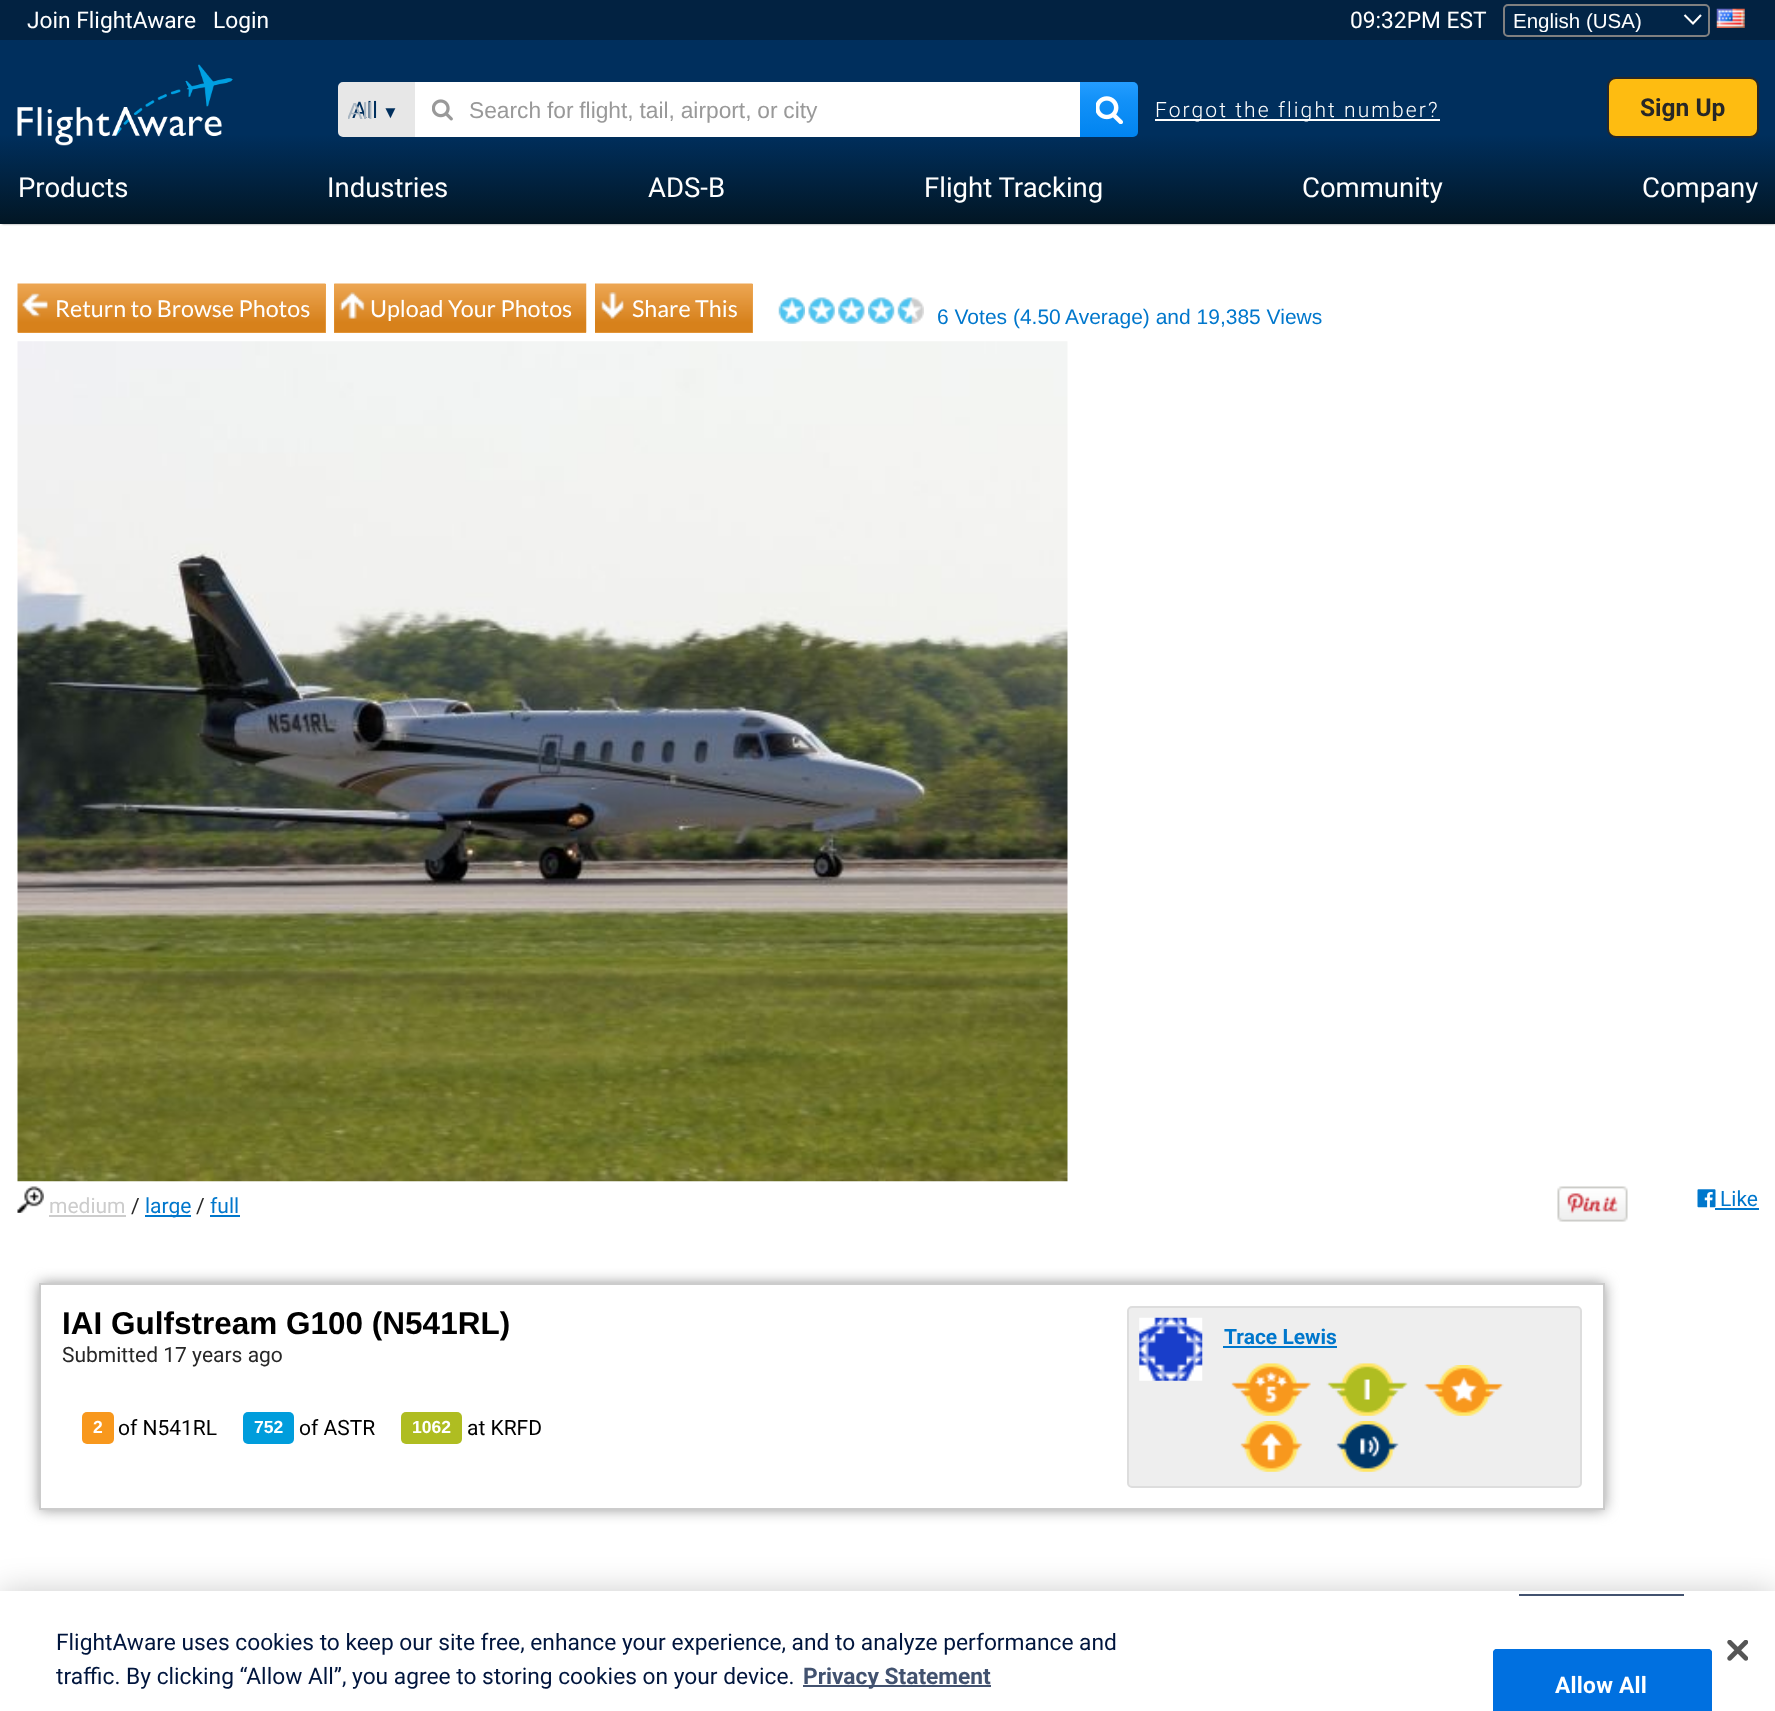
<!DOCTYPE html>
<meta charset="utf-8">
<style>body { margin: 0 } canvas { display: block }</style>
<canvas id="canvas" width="1775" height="1711"></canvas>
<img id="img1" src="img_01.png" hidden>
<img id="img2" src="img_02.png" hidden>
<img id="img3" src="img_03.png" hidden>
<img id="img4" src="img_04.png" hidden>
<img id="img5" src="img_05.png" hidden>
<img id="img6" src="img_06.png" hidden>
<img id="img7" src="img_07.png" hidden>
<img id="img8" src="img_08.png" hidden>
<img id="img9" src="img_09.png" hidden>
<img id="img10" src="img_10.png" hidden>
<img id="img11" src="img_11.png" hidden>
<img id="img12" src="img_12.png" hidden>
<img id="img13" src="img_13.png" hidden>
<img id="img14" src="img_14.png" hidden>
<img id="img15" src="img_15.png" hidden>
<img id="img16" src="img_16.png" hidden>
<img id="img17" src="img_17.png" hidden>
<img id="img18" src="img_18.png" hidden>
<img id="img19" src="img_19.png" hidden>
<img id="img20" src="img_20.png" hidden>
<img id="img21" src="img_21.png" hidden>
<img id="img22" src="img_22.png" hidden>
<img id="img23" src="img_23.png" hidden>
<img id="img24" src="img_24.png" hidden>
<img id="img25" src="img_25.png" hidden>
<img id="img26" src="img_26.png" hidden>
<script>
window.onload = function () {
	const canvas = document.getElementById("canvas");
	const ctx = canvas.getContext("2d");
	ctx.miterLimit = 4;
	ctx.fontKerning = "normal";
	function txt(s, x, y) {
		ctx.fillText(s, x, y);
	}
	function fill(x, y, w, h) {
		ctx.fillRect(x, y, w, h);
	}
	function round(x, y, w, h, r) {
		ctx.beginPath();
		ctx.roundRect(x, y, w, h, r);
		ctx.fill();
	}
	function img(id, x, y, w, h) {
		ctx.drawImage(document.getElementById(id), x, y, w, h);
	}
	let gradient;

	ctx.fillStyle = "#FFFFFF";
	fill(0, 0, 1775, 1711);
	ctx.fillStyle = "#888888";
	ctx.filter = "blur(1px)";
	ctx.beginPath();
	ctx.rect(2, 4, 1773, 220);
	ctx.fill();
	ctx.filter = "none";
	gradient = ctx.createLinearGradient(888, 0, 888, 224);
	gradient.addColorStop(0, "#002F5D");
	gradient.addColorStop(0.6, "#002F5D");
	gradient.addColorStop(1, "#021624");
	ctx.fillStyle = gradient;
	fill(0, 40, 1775, 184);
	ctx.fillStyle = "#022241";
	fill(0, 0, 1775, 40);
	ctx.fillStyle = "#022547";
	round(1503, 4, 207, 33, 5);
	ctx.beginPath();
	ctx.moveTo(1684.5, 15);
	ctx.lineTo(1693, 23.5);
	ctx.lineTo(1701, 15);
	ctx.strokeStyle = "#FFFFFF";
	ctx.lineWidth = 2.1;
	ctx.stroke();
	ctx.beginPath();
	ctx.roundRect(1504, 5, 205, 31, 4);
	ctx.strokeStyle = "#808080";
	ctx.lineWidth = 2;
	ctx.stroke();
	img("img1", 1716, 8, 29, 20);
	img("img2", 17, 64, 216, 82);
	ctx.fillStyle = "#E7E7E7";
	ctx.beginPath();
	ctx.roundRect(339, 83, 75, 53, [4, 0, 0, 4]);
	ctx.fill();
	ctx.strokeStyle = "#E7E7E7";
	ctx.stroke();
	ctx.fillStyle = "#FFFFFF";
	fill(415, 82, 665, 55);
	img("img3", 432, 99, 21, 22);
	gradient = ctx.createLinearGradient(1108, 137, 1108, 82);
	gradient.addColorStop(0, "#0084F0");
	gradient.addColorStop(0.66, "#1291F8");
	gradient.addColorStop(1, "#249DFF");
	ctx.fillStyle = gradient;
	ctx.beginPath();
	ctx.roundRect(1080, 82, 58, 55, [0, 5, 5, 0]);
	ctx.fill();
	img("img4", 1096, 96, 27, 28);
	ctx.fillStyle = "#FFFFFF";
	fill(1155, 119, 285, 2);
	ctx.fillStyle = "#FEBC11";
	ctx.beginPath();
	ctx.roundRect(1608, 78, 150, 59, 8);
	ctx.fill();
	ctx.strokeStyle = "#272727";
	ctx.stroke();
	ctx.fillStyle = "#EDA653";
	fill(18, 284, 308, 49);
	img("img5", 17, 283, 309, 50);
	img("img6", 22, 293, 26, 25);
	fill(334, 284, 252, 49);
	img("img7", 334, 283, 253, 50);
	img("img8", 339, 292, 26, 27);
	fill(595, 284, 158, 49);
	img("img9", 595, 283, 158, 50);
	img("img10", 600, 292, 24, 27);
	img("img11", 778, 297, 27, 27);
	img("img12", 808, 297, 27, 27);
	img("img13", 838, 297, 27, 27);
	img("img14", 868, 297, 27, 27);
	img("img15", 897, 297, 27, 27);
	img("img16", 17, 341, 1051, 841);
	img("img17", 17, 1186, 27, 27);
	ctx.fillStyle = "#CCCCCC";
	fill(49, 1215, 77, 2);
	ctx.fillStyle = "#0077CC";
	fill(145, 1215, 46, 2);
	fill(210, 1215, 30, 2);
	img("img18", 1557, 1186, 71, 36);
	img("img19", 1697, 1189, 19, 19);
	fill(1715, 1208, 44, 2);
	ctx.save();
	ctx.beginPath();
	ctx.moveTo(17, 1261);
	ctx.lineTo(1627, 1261);
	ctx.lineTo(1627, 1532);
	ctx.lineTo(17, 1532);
	ctx.closePath();
	ctx.moveTo(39, 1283);
	ctx.lineTo(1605, 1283);
	ctx.lineTo(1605, 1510);
	ctx.lineTo(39, 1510);
	ctx.closePath();
	ctx.clip("evenodd");
	ctx.fillStyle = "#999999";
	ctx.filter = "blur(7px)";
	ctx.beginPath();
	ctx.rect(39, 1283, 1566, 227);
	ctx.fill();
	ctx.filter = "none";
	ctx.restore();
	ctx.strokeStyle = "#CCCCCC";
	ctx.strokeRect(40, 1284, 1564, 225);
	ctx.fillStyle = "#F8981D";
	round(82, 1412, 32, 32, 5);
	ctx.fillStyle = "#009DDC";
	round(243, 1412, 51, 32, 5);
	ctx.fillStyle = "#AFBD21";
	round(401, 1412, 61, 32, 5);
	ctx.fillStyle = "#EEEEEE";
	ctx.beginPath();
	ctx.roundRect(1128, 1307, 453, 180, 4);
	ctx.fill();
	ctx.strokeStyle = "#DDDDDD";
	ctx.stroke();
	img("img20", 1139, 1317, 64, 64);
	ctx.fillStyle = "#0077CC";
	fill(1223, 1346, 114, 2);
	img("img21", 1231, 1363, 80, 53);
	img("img22", 1326, 1363, 82, 53);
	img("img23", 1424, 1365, 80, 51);
	img("img24", 1240, 1421, 63, 51);
	img("img25", 1335, 1421, 64, 51);
	ctx.fillStyle = "rgba(0, 0, 0, 0.2)";
	ctx.filter = "blur(16px)";
	ctx.beginPath();
	ctx.rect(0, 1591, 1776, 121);
	ctx.fill();
	ctx.filter = "none";
	ctx.fillStyle = "#FFFFFF";
	fill(0, 1591, 1775, 120);
	ctx.fillStyle = "#42526F";
	fill(803, 1685, 188, 2);
	fill(1519, 1594, 165, 2);
	ctx.fillStyle = "#0070E0";
	ctx.beginPath();
	ctx.moveTo(1497, 1649);
	ctx.lineTo(1708, 1649);
	ctx.bezierCurveTo(1710, 1649, 1712, 1651, 1712, 1653);
	ctx.lineTo(1712, 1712);
	ctx.lineTo(1493, 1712);
	ctx.lineTo(1493, 1653);
	ctx.bezierCurveTo(1493, 1651, 1495, 1649, 1497, 1649);
	ctx.closePath();
	ctx.fill();
	ctx.beginPath();
	ctx.roundRect(1494, 1650, 217, 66, 3);
	ctx.strokeStyle = "#0070E0";
	ctx.stroke();
	img("img26", 1727, 1640, 21, 21);
	ctx.font = "22.75px Roboto";
	ctx.fillStyle = "#FFFFFF";
	txt("Join FlightAware", 27, 28);
	txt("Login", 213, 28);
	txt("09:32PM EST", 1350, 28);
	ctx.save();
	ctx.beginPath();
	ctx.rect(1512, 9, 189, 23);
	ctx.clip();
	ctx.font = "20.5px Liberation Sans";
	txt("English (USA)", 1513, 28);
	ctx.restore();
	ctx.fillStyle = "#002F5D";
	txt("All", 352, 118);
	ctx.font = "17px Liberation Sans";
	txt("▼", 382, 118);
	ctx.save();
	ctx.beginPath();
	ctx.rect(348, 96, 202, 30);
	ctx.clip();
	ctx.font = "23.25px Liberation Sans";
	ctx.fillStyle = "#A8B5C1";
	txt("All", 347, 119);
	ctx.restore();
	ctx.wordSpacing = "-0.5px";
	ctx.font = "22.75px Liberation Sans";
	ctx.fillStyle = "#999999";
	txt("Search for flight, tail, airport, or city", 469, 118);
	ctx.letterSpacing = "2.1px";
	ctx.wordSpacing = "0px";
	ctx.font = "300 21px Roboto";
	ctx.fillStyle = "#FFFFFF";
	txt("Forgot the flight number?", 1155, 117);
	ctx.letterSpacing = "0px";
	ctx.font = "bold 24.5px Roboto";
	ctx.fillStyle = "#272727";
	txt("Sign Up", 1640, 116);
	ctx.font = "27.5px Roboto";
	ctx.fillStyle = "#FFFFFF";
	txt("Products", 18, 197);
	txt("Industries", 327, 197);
	txt("ADS-B", 648, 197);
	txt("Flight Tracking", 924, 197);
	txt("Community", 1302, 197);
	txt("Company", 1642, 197);
	ctx.font = "23.25px Lato";
	txt("Return to Browse Photos", 55, 317);
	txt("Upload Your Photos", 370, 317);
	txt("Share This", 632, 317);
	ctx.font = "21px Liberation Sans";
	ctx.fillStyle = "#0077CC";
	txt("6 Votes (4.50", 937, 324);
	txt("Average) and 19,385 Views", 1065, 324);
	ctx.font = "21px Roboto";
	ctx.fillStyle = "#CCCCCC";
	txt("medium", 49, 1213);
	ctx.fillStyle = "#272727";
	txt("/", 131, 1213);
	ctx.fillStyle = "#0077CC";
	txt("large", 145, 1213);
	ctx.fillStyle = "#272727";
	txt("/", 196, 1213);
	ctx.fillStyle = "#0077CC";
	txt("full", 210, 1213);
	txt("Like", 1720, 1206);
	ctx.font = "bold 31.5px Liberation Sans";
	ctx.fillStyle = "#000000";
	txt("IAI Gulfstream G100 (N541RL)", 62, 1334);
	ctx.font = "21px Roboto";
	ctx.fillStyle = "#272727";
	txt("Submitted 17 years ago", 62, 1362);
	ctx.font = "bold 17.5px Liberation Sans";
	ctx.fillStyle = "#FFFFFF";
	txt("2", 93, 1433);
	ctx.font = "21px Roboto";
	ctx.fillStyle = "#000000";
	txt("of N541RL", 118, 1435);
	ctx.font = "bold 17.5px Liberation Sans";
	ctx.fillStyle = "#FFFFFF";
	txt("752", 254, 1433);
	ctx.font = "21px Roboto";
	ctx.fillStyle = "#000000";
	txt("of ASTR", 299, 1435);
	ctx.font = "bold 17.5px Liberation Sans";
	ctx.fillStyle = "#FFFFFF";
	txt("1062", 412, 1433);
	ctx.font = "21px Roboto";
	ctx.fillStyle = "#000000";
	txt("at KRFD", 467, 1435);
	ctx.font = "bold 21px Roboto";
	ctx.fillStyle = "#0077CC";
	txt("Trace Lewis", 1224, 1344);
	ctx.font = "22.75px Roboto";
	ctx.fillStyle = "#00153D";
	txt("FlightAware uses cookies to keep our site free, enhance your experience, and to analyze performance and", 56, 1650);
	txt("traffic. By clicking “Allow All”, you agree to storing cookies on your device.", 56, 1684);
	ctx.font = "bold 22.75px Roboto";
	ctx.fillStyle = "#42526F";
	txt("Privacy Statement", 803, 1684);
	ctx.letterSpacing = "0.25px";
	ctx.fillStyle = "#FFFFFF";
	txt("Allow All", 1555, 1693);
};
</script>
